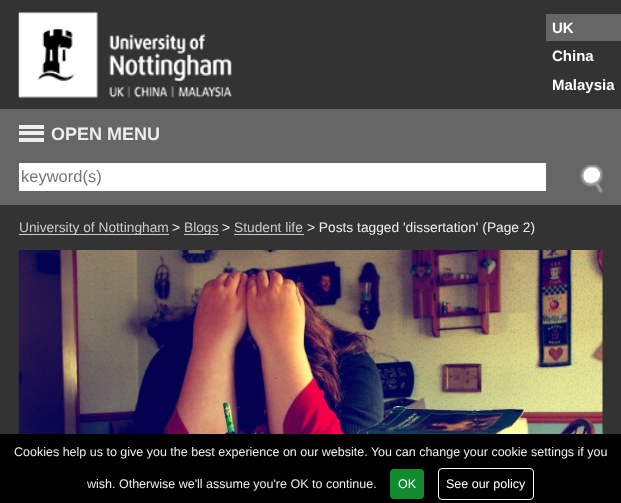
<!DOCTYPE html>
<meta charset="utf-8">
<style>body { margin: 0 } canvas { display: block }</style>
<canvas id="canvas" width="621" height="503"></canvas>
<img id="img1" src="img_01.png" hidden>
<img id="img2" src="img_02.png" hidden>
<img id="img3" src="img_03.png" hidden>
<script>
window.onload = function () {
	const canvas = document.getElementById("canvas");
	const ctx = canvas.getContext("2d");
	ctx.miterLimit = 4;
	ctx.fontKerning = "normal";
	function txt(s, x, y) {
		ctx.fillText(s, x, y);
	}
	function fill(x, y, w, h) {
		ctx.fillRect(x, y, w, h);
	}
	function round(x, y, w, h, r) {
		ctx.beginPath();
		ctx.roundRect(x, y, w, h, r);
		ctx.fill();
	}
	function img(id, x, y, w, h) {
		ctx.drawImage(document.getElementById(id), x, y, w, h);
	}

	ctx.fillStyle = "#333333";
	fill(0, 0, 621, 503);
	img("img1", 18, 12, 214, 86);
	ctx.fillStyle = "#666666";
	fill(546, 14, 75, 27);
	fill(0, 109, 621, 96);
	ctx.fillStyle = "#EEEEEE";
	fill(19, 125, 25, 4);
	fill(19, 131, 25, 4);
	fill(19, 138, 25, 4);
	ctx.fillStyle = "#FFFFFF";
	fill(19, 163, 527, 28);
	img("img2", 580, 165, 23, 28);
	ctx.fillStyle = "#CCCCCC";
	fill(19, 234, 150, 1);
	fill(184, 234, 35, 1);
	fill(234, 234, 70, 1);
	img("img3", 18, 250, 585, 184);
	ctx.fillStyle = "#000000";
	fill(0, 434, 621, 69);
	ctx.fillStyle = "#128B2F";
	round(390, 469, 34, 30, 4);
	ctx.beginPath();
	ctx.roundRect(438.5, 468.5, 95, 31, 3.5);
	ctx.strokeStyle = "#FFFFFF";
	ctx.stroke();
	ctx.font = "bold 15px Liberation Sans";
	ctx.fillStyle = "#FFFFFF";
	txt("UK", 552, 33);
	txt("China", 552, 61);
	txt("Malaysia", 552, 90);
	ctx.font = "bold 18px Liberation Sans";
	ctx.fillStyle = "#EEEEEE";
	txt("OPEN MENU", 51, 140);
	ctx.font = "16.5px Liberation Sans";
	ctx.fillStyle = "#757575";
	txt("keyword(s)", 21, 182);
	ctx.font = "13.75px Liberation Sans";
	ctx.fillStyle = "#CCCCCC";
	txt("University of Nottingham", 19, 232);
	ctx.fillStyle = "#EEEEEE";
	txt(">", 172, 232);
	ctx.fillStyle = "#CCCCCC";
	txt("Blogs", 184, 232);
	ctx.fillStyle = "#EEEEEE";
	txt(">", 222, 232);
	ctx.fillStyle = "#CCCCCC";
	txt("Student life", 234, 232);
	ctx.fillStyle = "#EEEEEE";
	txt("> Posts tagged 'dissertation' (Page 2)", 307, 232);
	ctx.font = "12.5px Liberation Sans";
	txt("Cookies help us to give you the best experience on our website. You can change your cookie settings if you", 14, 456);
	txt("wish. Otherwise we'll assume you're OK to continue.", 87, 488);
	ctx.fillStyle = "#FFFFFF";
	txt("OK", 398, 488);
	txt("See our policy", 446, 488);
};
</script>
